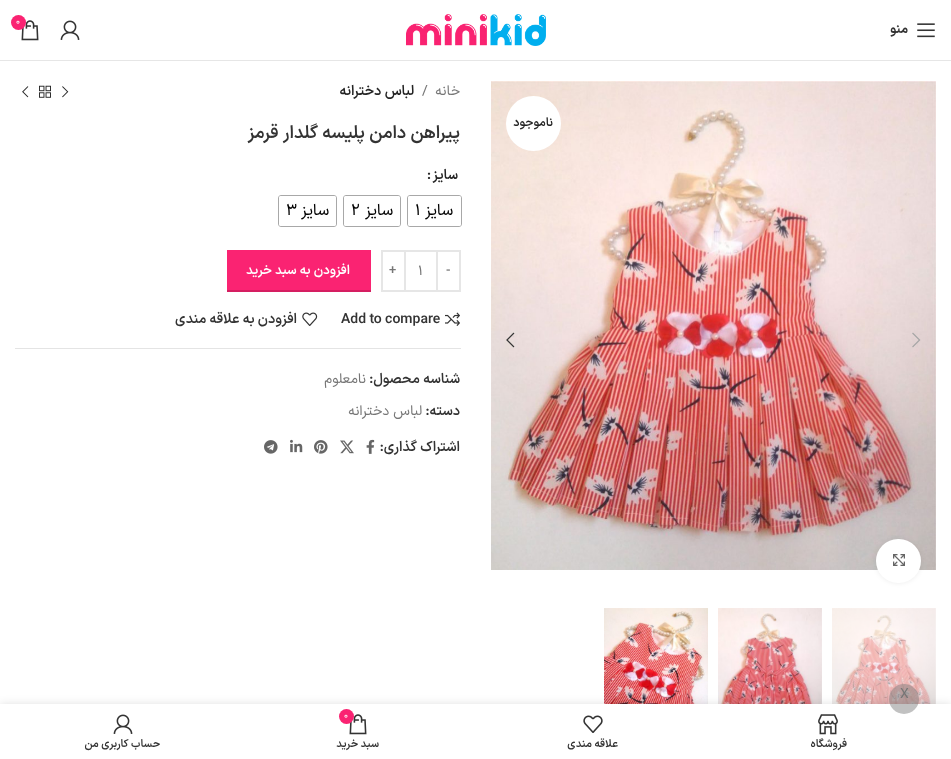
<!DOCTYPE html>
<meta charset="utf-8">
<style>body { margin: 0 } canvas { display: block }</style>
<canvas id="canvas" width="951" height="759"></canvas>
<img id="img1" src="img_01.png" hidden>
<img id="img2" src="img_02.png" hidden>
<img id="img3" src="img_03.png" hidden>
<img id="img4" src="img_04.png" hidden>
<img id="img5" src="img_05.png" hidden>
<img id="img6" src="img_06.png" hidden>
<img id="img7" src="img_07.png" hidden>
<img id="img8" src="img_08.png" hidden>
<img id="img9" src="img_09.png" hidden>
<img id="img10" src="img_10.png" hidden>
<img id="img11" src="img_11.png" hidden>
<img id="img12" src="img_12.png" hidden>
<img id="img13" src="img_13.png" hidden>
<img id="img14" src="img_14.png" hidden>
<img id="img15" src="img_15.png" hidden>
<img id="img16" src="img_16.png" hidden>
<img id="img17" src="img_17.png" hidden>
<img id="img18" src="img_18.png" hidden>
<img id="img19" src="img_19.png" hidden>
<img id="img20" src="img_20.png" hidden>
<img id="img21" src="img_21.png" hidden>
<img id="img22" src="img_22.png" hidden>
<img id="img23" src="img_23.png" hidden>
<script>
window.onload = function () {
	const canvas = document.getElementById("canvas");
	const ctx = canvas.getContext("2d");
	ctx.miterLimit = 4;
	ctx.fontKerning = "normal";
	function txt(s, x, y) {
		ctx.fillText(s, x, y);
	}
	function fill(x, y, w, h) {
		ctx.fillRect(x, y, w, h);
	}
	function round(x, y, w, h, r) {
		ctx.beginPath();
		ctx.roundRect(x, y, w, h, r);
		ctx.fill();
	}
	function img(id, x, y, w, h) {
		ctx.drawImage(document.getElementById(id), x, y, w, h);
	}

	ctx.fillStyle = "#FFFFFF";
	fill(0, 0, 951, 759);
	ctx.fillStyle = "#E6E6E6";
	fill(0, 60, 951, 1);
	img("img1", 406, 14, 140, 32);
	img("img2", 60, 20, 20, 20);
	img("img3", 21, 20, 18, 21);
	ctx.fillStyle = "#FA2372";
	ctx.beginPath();
	ctx.arc(18.5, 22.5, 7.5, 0, Math.PI * 2);
	ctx.fill();
	img("img4", 917, 23, 18, 15);
	img("img5", 491, 81, 445, 489);
	ctx.fillStyle = "#FFFFFF";
	ctx.beginPath();
	ctx.arc(533.5, 123.5, 27.5, 0, Math.PI * 2);
	ctx.fill();
	img("img6", 912, 332, 9, 16);
	img("img7", 506, 332, 9, 16);
	ctx.fillStyle = "rgba(0, 0, 0, 0.08)";
	ctx.filter = "blur(2.5px)";
	ctx.beginPath();
	ctx.roundRect(876, 539, 45, 44, 22);
	ctx.fill();
	ctx.filter = "none";
	ctx.fillStyle = "#FFFFFF";
	round(876, 539, 45, 44, 22);
	img("img8", 893, 554, 12, 12);
	img("img9", 832, 608, 104, 96);
	img("img10", 718, 608, 104, 96);
	img("img11", 604, 608, 104, 96);
	img("img12", 62, 86, 7, 12);
	img("img13", 39, 85, 12, 13);
	img("img14", 22, 86, 7, 12);
	ctx.beginPath();
	ctx.roundRect(407.5, 195.5, 54, 31, 2.5);
	ctx.strokeStyle = "#A8A8A8";
	ctx.stroke();
	round(408, 196, 53, 30, 2);
	ctx.beginPath();
	ctx.roundRect(343.5, 195.5, 57, 31, 2.5);
	ctx.stroke();
	round(344, 196, 56, 30, 2);
	ctx.beginPath();
	ctx.roundRect(278.5, 195.5, 58, 31, 2.5);
	ctx.stroke();
	round(279, 196, 57, 30, 2);
	ctx.strokeStyle = "#E6E6E6";
	ctx.lineWidth = 2;
	ctx.strokeRect(437, 251, 23, 40);
	ctx.fillStyle = "#E6E6E6";
	fill(406, 250, 30, 2);
	fill(406, 290, 30, 2);
	ctx.strokeRect(382, 251, 23, 40);
	ctx.fillStyle = "#FA2372";
	fill(227, 250, 144, 40);
	ctx.fillStyle = "#D51E61";
	fill(227, 290, 144, 2);
	img("img15", 445, 312, 15, 14);
	img("img16", 302, 312, 16, 14);
	ctx.fillStyle = "#E4E4E4";
	fill(15, 348, 446, 1);
	img("img17", 366, 439, 9, 15);
	img("img18", 340, 440, 14, 14);
	img("img19", 314, 440, 14, 14);
	img("img20", 290, 439, 13, 14);
	img("img21", 264, 440, 14, 14);
	ctx.fillStyle = "rgba(0, 0, 0, 0.12)";
	ctx.filter = "blur(4.5px)";
	ctx.beginPath();
	ctx.rect(0, 704, 951, 55);
	ctx.fill();
	ctx.filter = "none";
	ctx.fillStyle = "#FFFFFF";
	fill(0, 704, 951, 55);
	ctx.fillStyle = "rgba(128, 128, 128, 0.49)";
	ctx.beginPath();
	ctx.arc(904, 699, 15, 0, Math.PI * 2);
	ctx.fill();
	img("img22", 818, 714, 20, 21);
	img("img23", 583, 715, 20, 18);
	img("img3", 349, 714, 18, 21);
	ctx.fillStyle = "#FA2372";
	ctx.beginPath();
	ctx.arc(346.5, 716.5, 7.5, 0, Math.PI * 2);
	ctx.fill();
	img("img2", 113, 714, 20, 20);
	ctx.font = "9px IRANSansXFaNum";
	ctx.fillStyle = "#FFFFFF";
	txt("0", 16, 24);
	ctx.direction = "rtl";
	ctx.font = "bold 13px IRANSansXFaNum";
	ctx.fillStyle = "#333333";
	txt("منو", 908, 33);
	ctx.font = "600 12px IRANSansXFaNum";
	ctx.fillStyle = "#242424";
	txt("ناموجود", 553, 126);
	ctx.font = "14px IRANSansXFaNum";
	ctx.fillStyle = "#767676";
	txt("خانه", 460, 95);
	ctx.direction = "ltr";
	txt("/", 422, 95);
	ctx.direction = "rtl";
	ctx.font = "600 14px IRANSansXFaNum";
	ctx.fillStyle = "#242424";
	txt("لباس دخترانه", 414, 95);
	ctx.font = "600 18px IRANSansXFaNum";
	ctx.fillStyle = "#333333";
	txt("پیراهن دامن پلیسه گلدار قرمز", 460, 138);
	ctx.font = "600 14px IRANSansXFaNum";
	ctx.fillStyle = "#242424";
	txt("سایز", 458, 179);
	ctx.direction = "ltr";
	txt(":", 427, 179);
	ctx.direction = "rtl";
	ctx.font = "16px IRANSansXFaNum";
	ctx.fillStyle = "#000000";
	txt("سایز", 453, 215);
	ctx.direction = "ltr";
	txt("1", 415, 215);
	ctx.direction = "rtl";
	txt("سایز", 393, 215);
	ctx.direction = "ltr";
	txt("2", 351, 215);
	ctx.direction = "rtl";
	txt("سایز", 329, 215);
	ctx.direction = "ltr";
	txt("3", 286, 215);
	ctx.font = "600 13px IRANSansXFaNum";
	ctx.fillStyle = "#767676";
	txt("-", 446, 274);
	ctx.font = "14px IRANSansXFaNum";
	txt("1", 418, 275);
	ctx.font = "600 13px IRANSansXFaNum";
	txt("+", 389, 274);
	ctx.direction = "rtl";
	ctx.fillStyle = "#FFFFFF";
	txt("افزودن به سبد خرید", 350, 274);
	ctx.direction = "ltr";
	ctx.font = "600 14px IRANSansXFaNum";
	ctx.fillStyle = "#333333";
	txt("Add to compare", 341, 323);
	ctx.direction = "rtl";
	txt("افزودن به علاقه مندی", 297, 323);
	txt("شناسه محصول:", 460, 383);
	ctx.font = "14px IRANSansXFaNum";
	ctx.fillStyle = "#767676";
	txt("نامعلوم", 366, 383);
	ctx.font = "600 14px IRANSansXFaNum";
	ctx.fillStyle = "#333333";
	txt("دسته:", 460, 415);
	ctx.font = "14px IRANSansXFaNum";
	ctx.fillStyle = "#767676";
	txt("لباس دخترانه", 422, 415);
	ctx.font = "600 14px IRANSansXFaNum";
	ctx.fillStyle = "#333333";
	txt("اشتراک گذاری:", 460, 451);
	ctx.direction = "ltr";
	ctx.font = "14px IRANSansXFaNum";
	ctx.fillStyle = "#767676";
	txt("X", 900, 698);
	ctx.direction = "rtl";
	ctx.font = "600 11px IRANSansXFaNum";
	ctx.fillStyle = "#333333";
	txt("فروشگاه", 847, 747);
	txt("علاقه مندی", 618, 747);
	ctx.direction = "ltr";
	ctx.font = "9px IRANSansXFaNum";
	ctx.fillStyle = "#FFFFFF";
	txt("0", 344, 718);
	ctx.direction = "rtl";
	ctx.font = "600 11px IRANSansXFaNum";
	ctx.fillStyle = "#333333";
	txt("سبد خرید", 379, 747);
	txt("حساب کاربری من", 160, 747);
};
</script>
